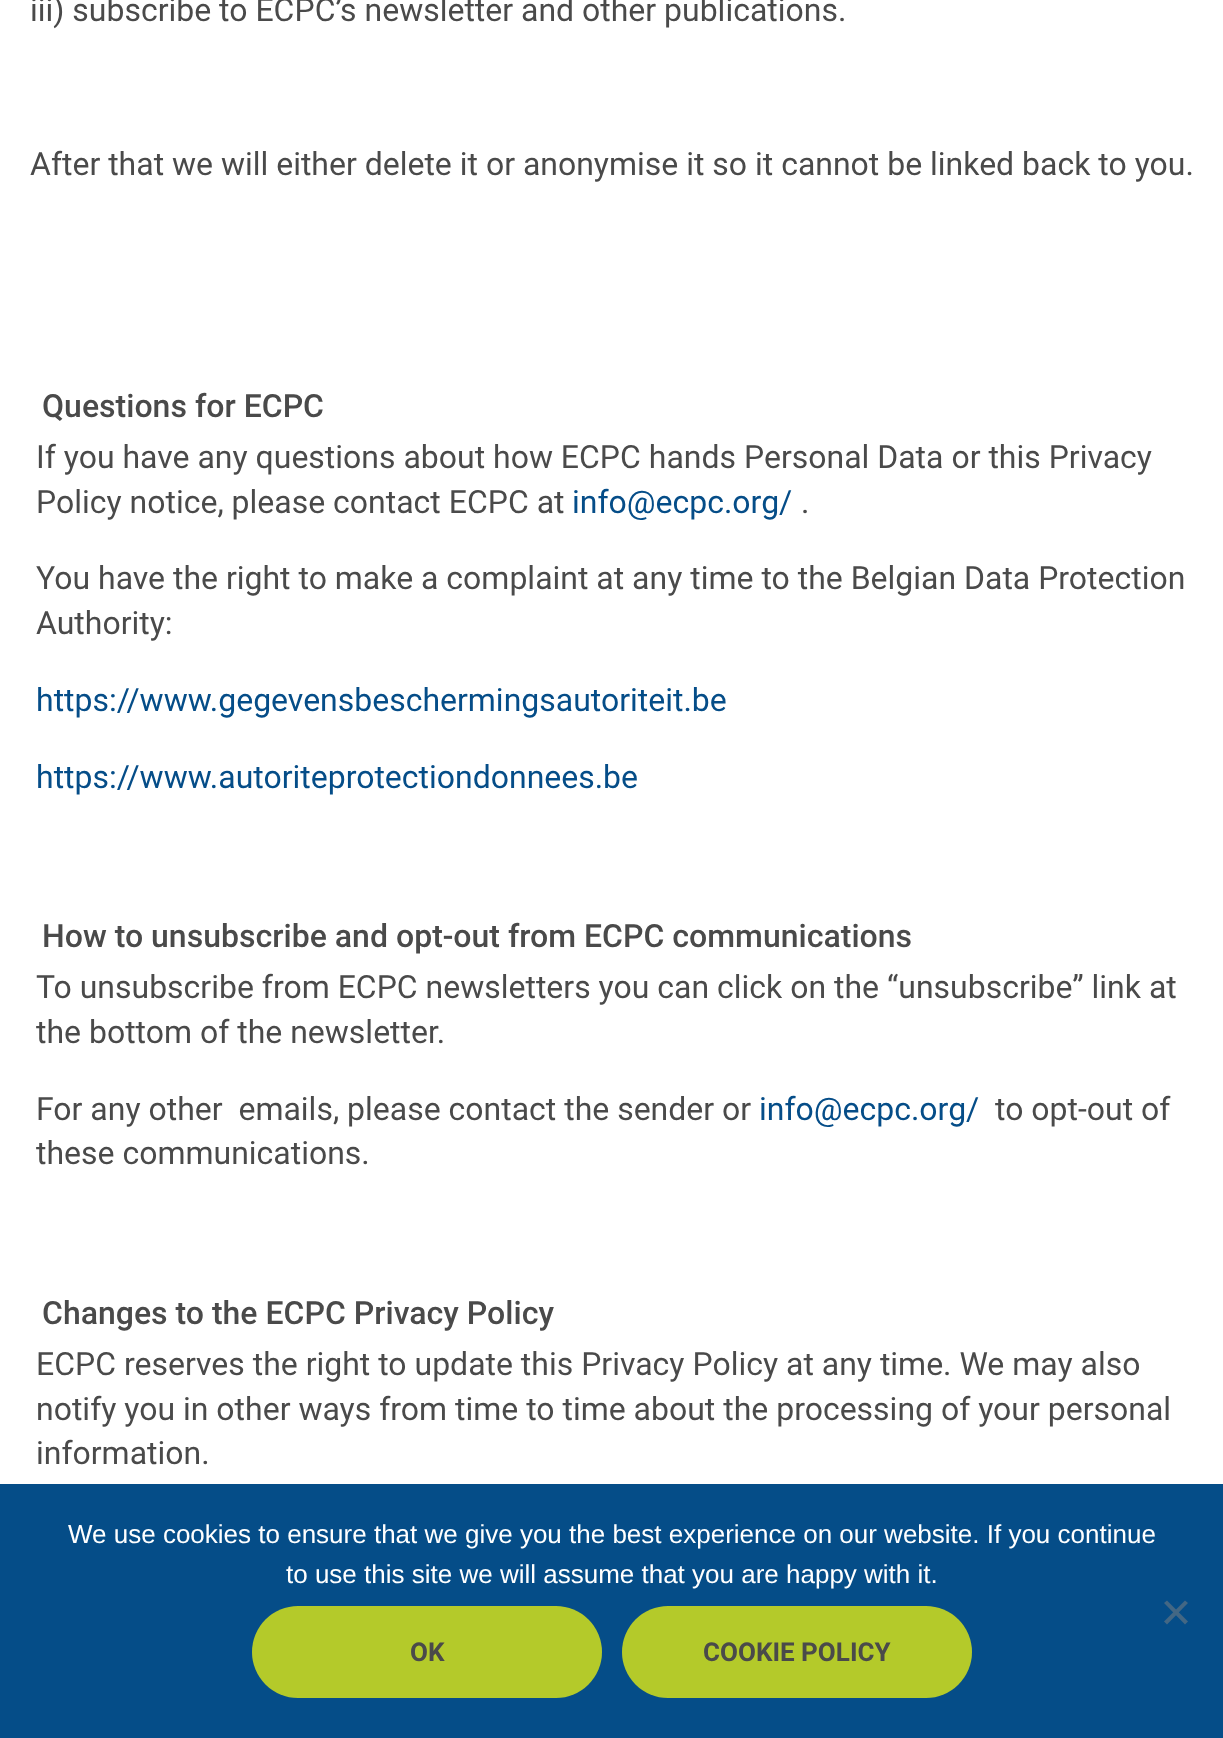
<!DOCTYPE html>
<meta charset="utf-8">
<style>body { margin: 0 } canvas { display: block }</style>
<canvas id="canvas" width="1223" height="1738"></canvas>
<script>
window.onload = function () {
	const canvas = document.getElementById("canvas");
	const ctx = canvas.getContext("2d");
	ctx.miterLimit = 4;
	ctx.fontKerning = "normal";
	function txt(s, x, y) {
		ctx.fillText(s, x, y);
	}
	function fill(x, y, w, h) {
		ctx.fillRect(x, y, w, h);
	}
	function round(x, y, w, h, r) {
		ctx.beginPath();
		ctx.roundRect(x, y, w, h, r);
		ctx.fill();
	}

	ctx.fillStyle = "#FFFFFF";
	fill(0, 0, 1223, 1738);
	ctx.fillStyle = "#054D88";
	fill(0, 1484, 1223, 254);
	ctx.fillStyle = "#436784";
	ctx.beginPath();
	ctx.moveTo(1185, 1600.5);
	ctx.lineTo(1188, 1603);
	ctx.lineTo(1167, 1624.5);
	ctx.lineTo(1164, 1621.5);
	ctx.closePath();
	ctx.fill();
	ctx.beginPath();
	ctx.moveTo(1164, 1603);
	ctx.lineTo(1167, 1600.5);
	ctx.lineTo(1188, 1621.5);
	ctx.lineTo(1185, 1624.5);
	ctx.closePath();
	ctx.fill();
	ctx.fillStyle = "#B4CA2A";
	round(252, 1606, 350, 92, 46);
	round(622, 1606, 350, 92, 46);
	ctx.font = "32px Roboto";
	ctx.fillStyle = "#4A4A4A";
	txt("iii) subscribe to ECPC’s newsletter and other publications.", 30, 21);
	txt("After that we will either delete it or anonymise it so it cannot be linked back to you.", 30, 175);
	ctx.font = "500 32px Roboto";
	txt("Questions for ECPC", 42, 417);
	ctx.font = "32px Roboto";
	txt("If you have any questions about how ECPC hands Personal Data or this Privacy", 36, 468);
	txt("Policy notice, please contact ECPC at", 36, 513);
	ctx.fillStyle = "#054D88";
	txt("info@ecpc.org/", 572, 513);
	ctx.fillStyle = "#4A4A4A";
	txt(".", 801, 513);
	txt("You have the right to make a complaint at any time to the Belgian Data Protection", 36, 589);
	txt("Authority:", 36, 634);
	ctx.fillStyle = "#054D88";
	txt("https://www.gegevensbeschermingsautoriteit.be", 36, 711);
	txt("https://www.autoriteprotectiondonnees.be", 36, 788);
	ctx.font = "500 32px Roboto";
	ctx.fillStyle = "#4A4A4A";
	txt("How to unsubscribe and opt-out from ECPC communications", 42, 947);
	ctx.font = "32px Roboto";
	txt("To unsubscribe from ECPC newsletters you can click on the “unsubscribe” link at", 36, 998);
	txt("the bottom of the newsletter.", 36, 1043);
	txt("For any other  emails, please contact the sender or", 36, 1120);
	ctx.fillStyle = "#054D88";
	txt("info@ecpc.org/", 759, 1120);
	ctx.fillStyle = "#4A4A4A";
	txt("to opt-out of", 995, 1120);
	txt("these communications.", 36, 1164);
	ctx.font = "500 32px Roboto";
	txt("Changes to the ECPC Privacy Policy", 42, 1324);
	ctx.font = "32px Roboto";
	txt("ECPC reserves the right to update this Privacy Policy at any time. We may also", 36, 1375);
	txt("notify you in other ways from time to time about the processing of your personal", 36, 1420);
	txt("information.", 36, 1464);
	ctx.font = "26px Liberation Sans";
	ctx.fillStyle = "#FFFFFF";
	txt("We use cookies to ensure that we give you the best experience on our website. If you continue", 68, 1543);
	txt("to use this site we will assume that you are happy with it.", 286, 1583);
	ctx.font = "bold 26px Roboto";
	ctx.fillStyle = "#4A4A4A";
	txt("OK", 410, 1661);
	txt("COOKIE POLICY", 703, 1661);
};
</script>
